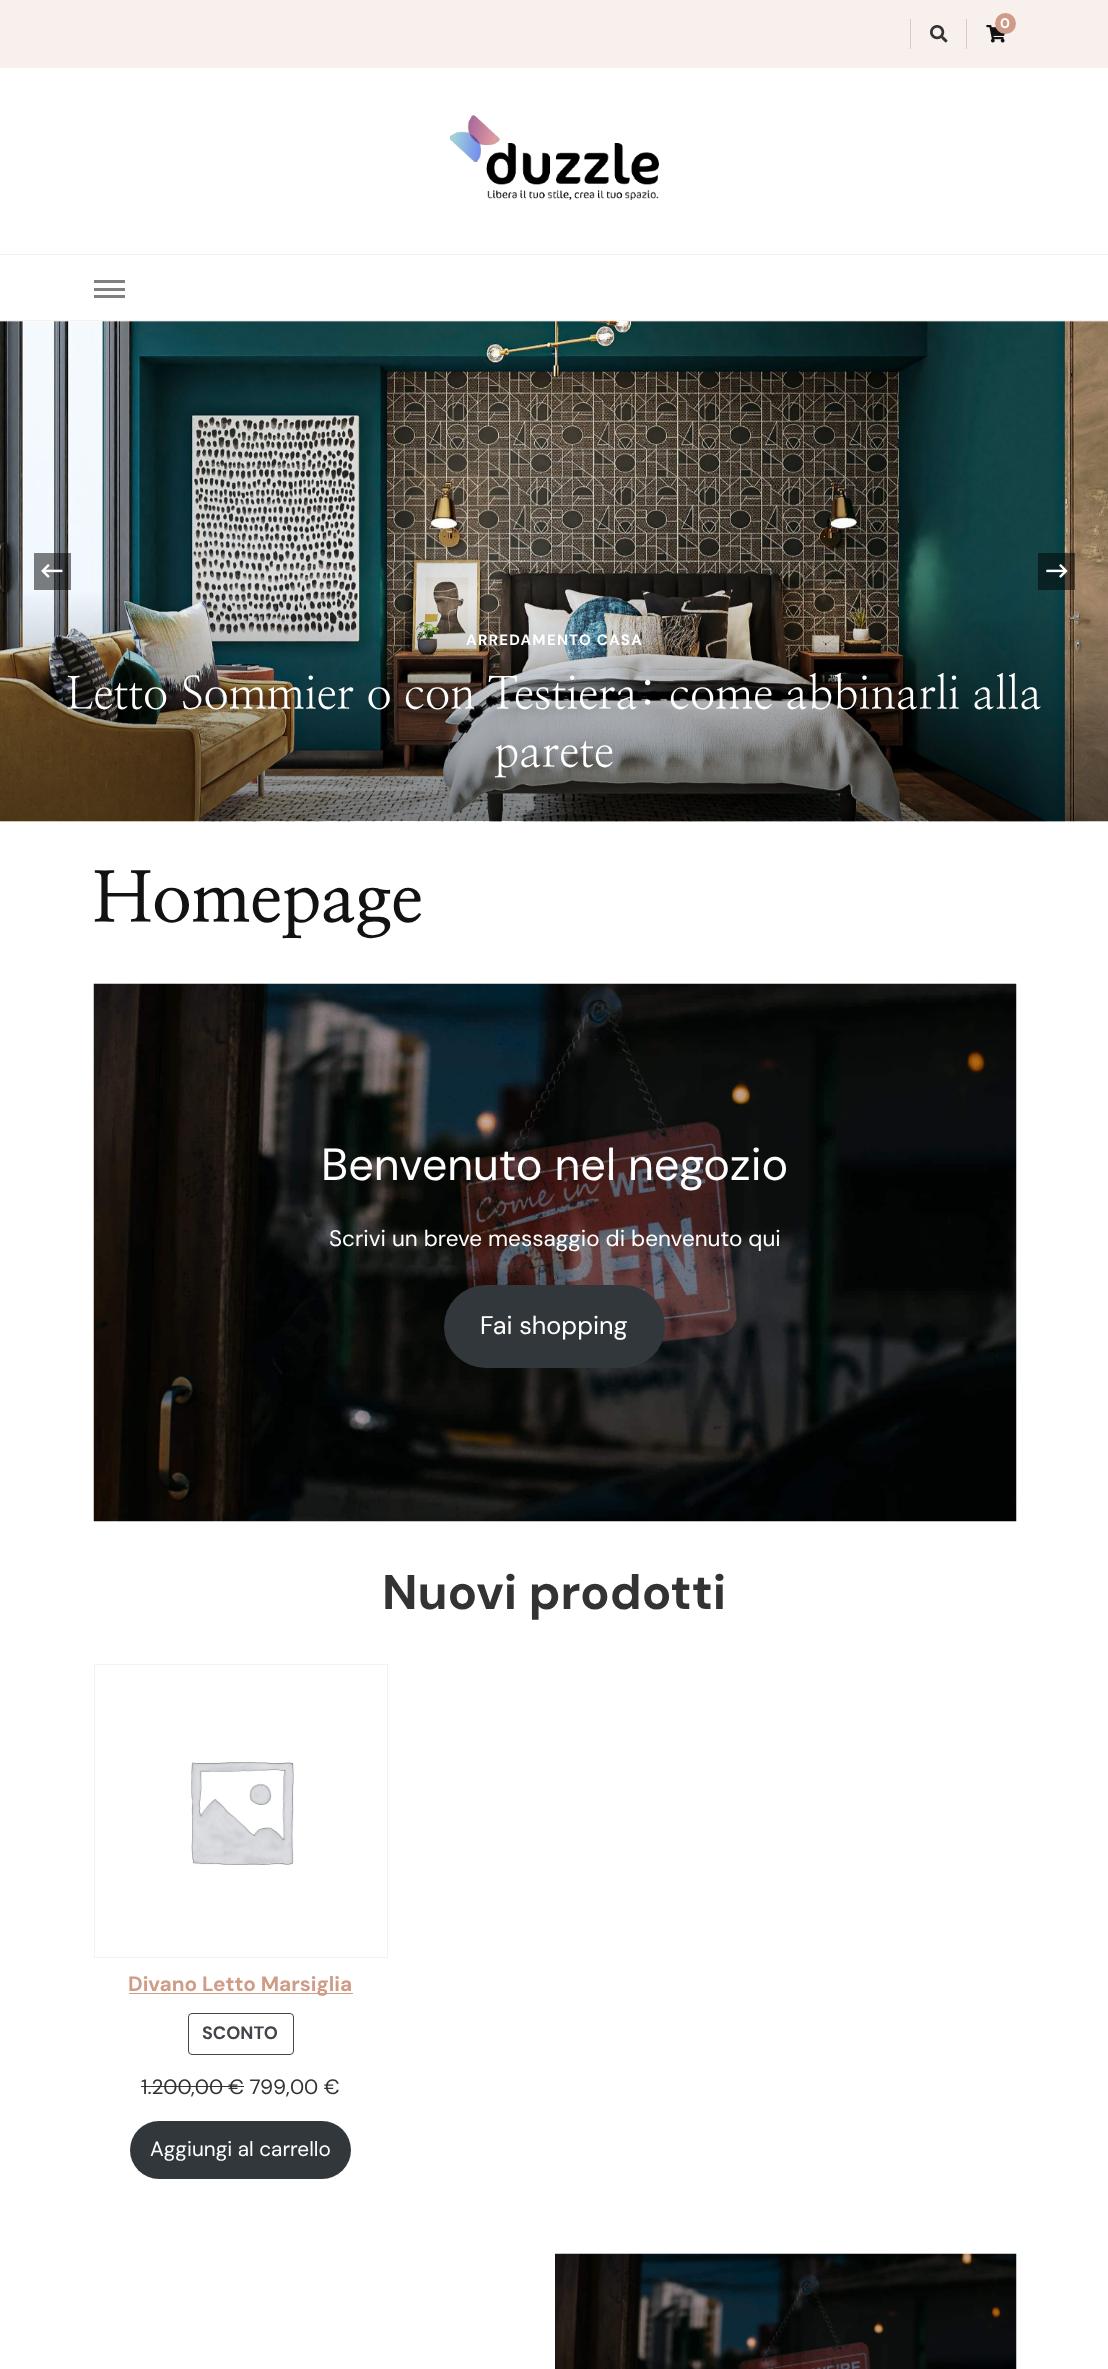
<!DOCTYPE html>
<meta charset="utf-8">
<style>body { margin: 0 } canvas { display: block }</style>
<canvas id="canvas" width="1108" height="2369"></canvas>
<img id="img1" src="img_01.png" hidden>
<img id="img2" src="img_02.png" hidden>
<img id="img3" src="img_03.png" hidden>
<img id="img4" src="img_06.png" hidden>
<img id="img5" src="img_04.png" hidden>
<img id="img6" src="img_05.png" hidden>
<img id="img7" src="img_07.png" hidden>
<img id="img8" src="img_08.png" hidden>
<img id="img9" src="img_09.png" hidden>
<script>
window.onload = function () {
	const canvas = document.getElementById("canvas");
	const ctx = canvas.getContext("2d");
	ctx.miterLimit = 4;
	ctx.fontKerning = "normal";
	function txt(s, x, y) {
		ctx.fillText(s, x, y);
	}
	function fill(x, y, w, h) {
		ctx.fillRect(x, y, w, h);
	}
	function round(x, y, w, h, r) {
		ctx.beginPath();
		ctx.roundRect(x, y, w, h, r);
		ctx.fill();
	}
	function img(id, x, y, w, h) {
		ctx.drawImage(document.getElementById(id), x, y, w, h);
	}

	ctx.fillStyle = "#FFFFFF";
	fill(0, 0, 1108, 2369);
	ctx.fillStyle = "#F8F0ED";
	fill(0, 0, 1108, 68);
	ctx.fillStyle = "#D3CCC9";
	fill(910, 19, 1, 30);
	img("img1", 930, 25, 18, 18);
	fill(966, 19, 1, 30);
	img("img2", 986, 25, 19, 18);
	ctx.fillStyle = "#CF9C88";
	ctx.beginPath();
	ctx.arc(1005.5, 23.5, 10.5, 0, Math.PI * 2);
	ctx.fill();
	img("img3", 450, 115, 209, 85);
	ctx.fillStyle = "#F8F0ED";
	fill(0, 254, 1108, 1);
	fill(0, 320, 1108, 1);
	ctx.fillStyle = "#808080";
	fill(94, 280, 31, 3);
	fill(94, 288, 31, 3);
	fill(94, 295, 31, 3);
	img("img4", 0, 321, 1108, 501);
	ctx.fillStyle = "rgba(0, 0, 0, 0.5)";
	fill(34, 553, 37, 37);
	img("img5", 41, 564, 22, 14);
	fill(1038, 553, 37, 37);
	img("img6", 1046, 564, 22, 14);
	img("img7", 93, 983, 924, 539);
	ctx.fillStyle = "#32373C";
	round(444, 1285, 221, 83, 41.5);
	ctx.strokeStyle = "#F2F2F2";
	ctx.strokeRect(94.5, 1664.5, 293, 293);
	img("img8", 191, 1762, 103, 103);
	ctx.fillStyle = "#CF9C88";
	fill(129, 1993, 224, 1);
	ctx.beginPath();
	ctx.roundRect(188.5, 2013.5, 105, 41, 3.5);
	ctx.strokeStyle = "#43454B";
	ctx.stroke();
	ctx.fillStyle = "#333333";
	fill(141, 2086, 88, 1);
	fill(229, 2086, 15, 1);
	ctx.fillStyle = "#32373C";
	round(130, 2121, 221, 58, 29);
	img("img9", 555, 2253, 462, 116);
	ctx.font = "bold 14px DM Sans";
	ctx.fillStyle = "#FFFFFF";
	txt("0", 1000, 28);
	ctx.letterSpacing = "1.25px";
	ctx.font = "bold 15px DM Sans";
	txt("ARREDAMENTO CASA", 466, 645);
	ctx.letterSpacing = "0px";
	ctx.font = "45px NanumMyeongjo";
	txt("Letto Sommier o con Testiera: come abbinarli alla", 66, 709);
	txt("parete", 494, 767);
	ctx.font = "bold 70px NanumMyeongjo";
	ctx.fillStyle = "#121212";
	txt("Homepage", 93, 922);
	ctx.font = "45px DM Sans";
	ctx.fillStyle = "#FFFFFF";
	txt("Benvenuto nel negozio", 321, 1180);
	ctx.font = "22.5px DM Sans";
	txt("Scrivi un breve messaggio di benvenuto qui", 329, 1246);
	ctx.font = "25.25px DM Sans";
	txt("Fai shopping", 480, 1334);
	ctx.font = "bold 48.75px DM Sans";
	ctx.fillStyle = "#333333";
	txt("Nuovi prodotti", 382, 1609);
	ctx.font = "bold 20.75px DM Sans";
	ctx.fillStyle = "#CF9C88";
	txt("Divano Letto Marsiglia", 128, 1991);
	ctx.font = "bold 18px DM Sans";
	ctx.fillStyle = "#43454B";
	txt("SCONTO", 202, 2039);
	ctx.font = "20.75px DM Sans";
	ctx.fillStyle = "#333333";
	txt("1.200,00", 141, 2094);
	txt("€ 799,00 €", 228, 2094);
	ctx.fillStyle = "#FFFFFF";
	txt("Aggiungi al carrello", 150, 2156);
};
</script>
